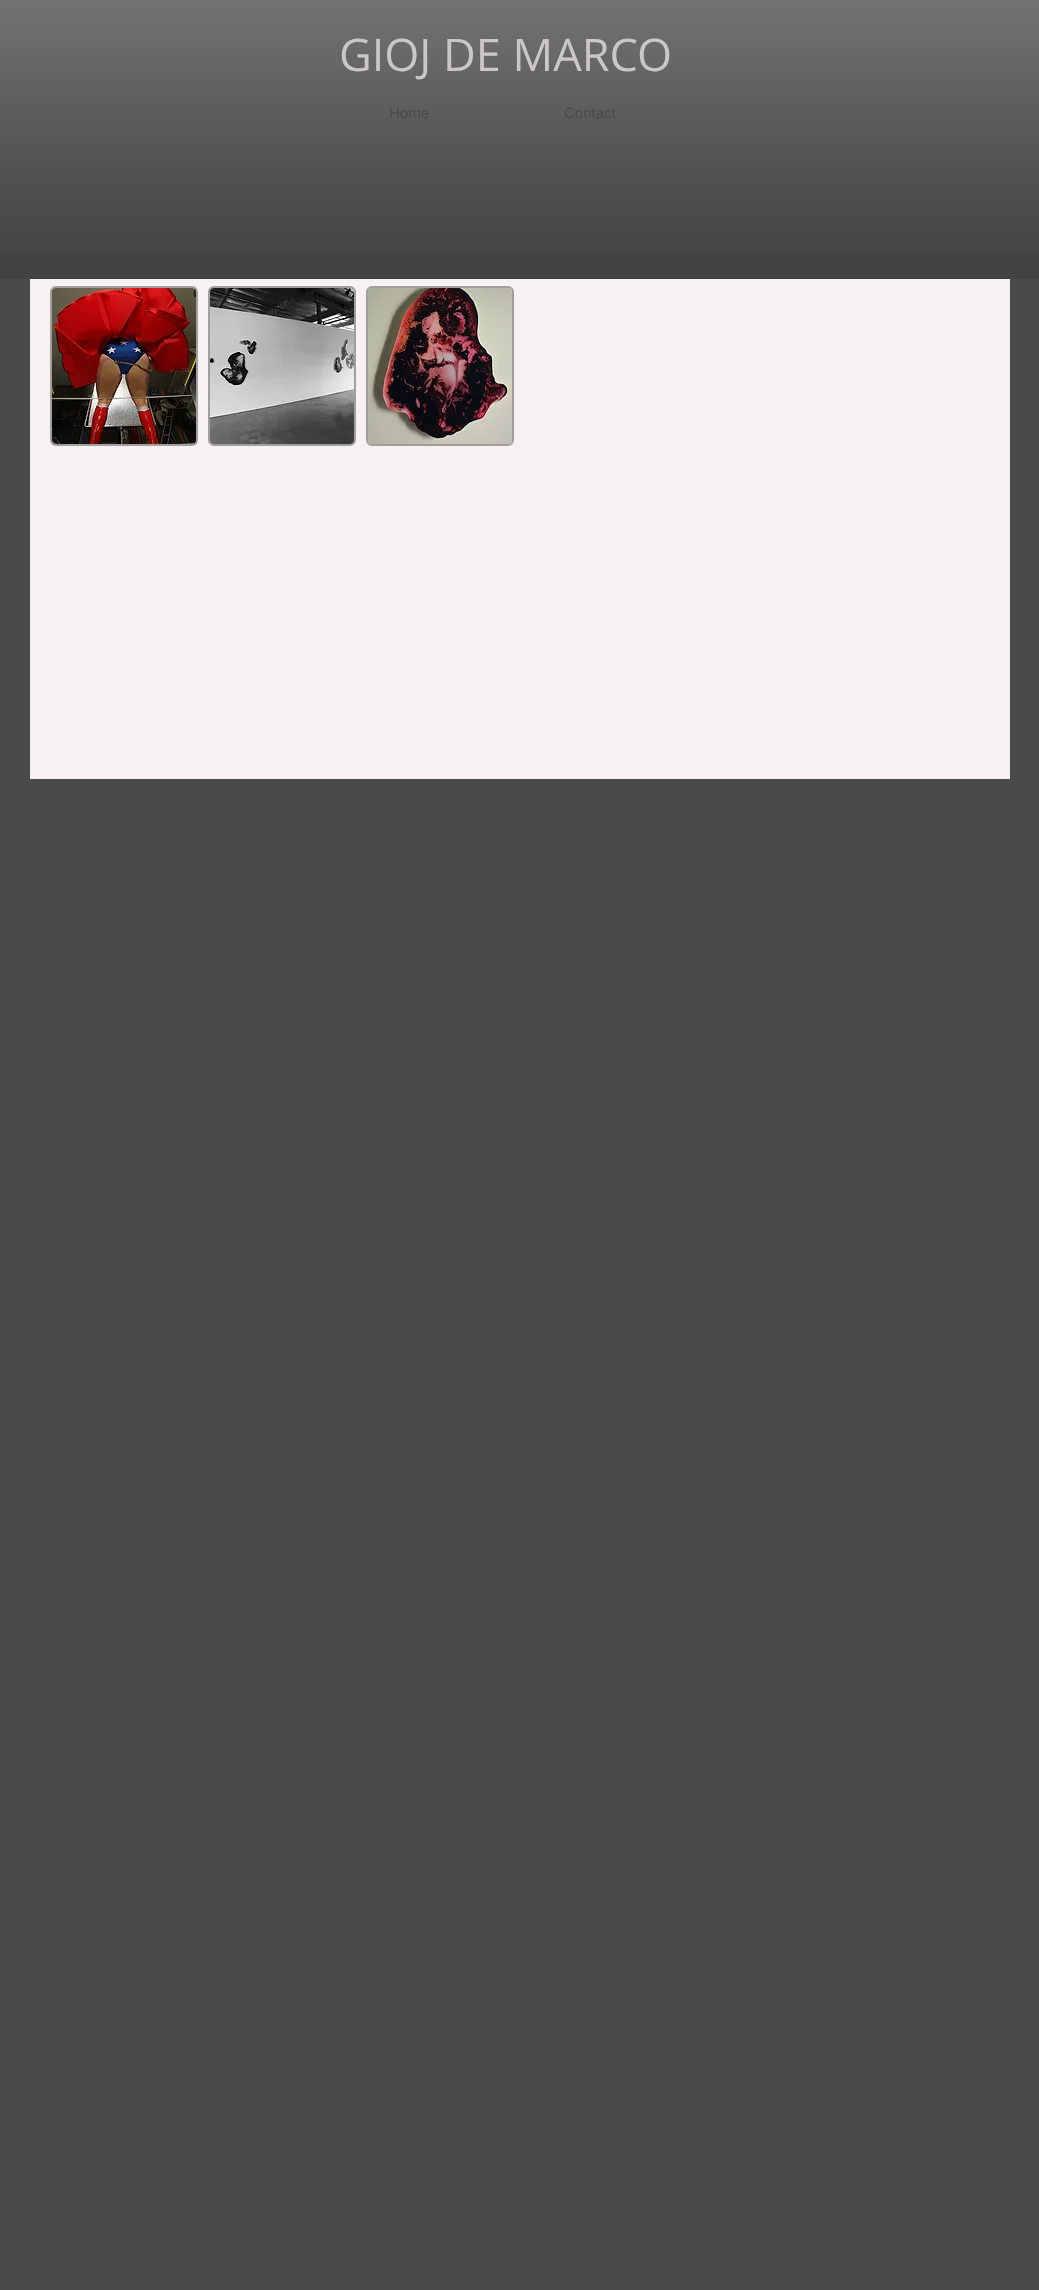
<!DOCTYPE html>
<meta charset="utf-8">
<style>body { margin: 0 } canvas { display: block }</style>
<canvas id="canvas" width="1039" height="2290"></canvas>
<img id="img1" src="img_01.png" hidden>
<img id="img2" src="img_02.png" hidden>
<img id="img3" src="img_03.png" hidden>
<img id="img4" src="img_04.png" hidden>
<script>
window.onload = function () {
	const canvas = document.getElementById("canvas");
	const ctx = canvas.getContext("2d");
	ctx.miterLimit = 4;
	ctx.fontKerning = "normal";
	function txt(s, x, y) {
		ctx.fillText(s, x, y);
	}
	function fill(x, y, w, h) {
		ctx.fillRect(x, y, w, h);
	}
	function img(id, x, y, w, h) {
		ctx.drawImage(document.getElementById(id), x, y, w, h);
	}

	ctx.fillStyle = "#4A4A4A";
	fill(0, 0, 1039, 2290);
	ctx.fillStyle = "#424242";
	fill(0, 0, 1039, 279);
	img("img1", 0, 0, 1039, 254);
	ctx.fillStyle = "#F7F1F1";
	fill(30, 279, 980, 500);
	ctx.beginPath();
	ctx.roundRect(51, 287, 146, 158, 5);
	ctx.strokeStyle = "#A19E9E";
	ctx.lineWidth = 2;
	ctx.stroke();
	img("img2", 52, 288, 144, 156);
	ctx.beginPath();
	ctx.roundRect(209, 287, 146, 158, 5);
	ctx.stroke();
	img("img3", 210, 288, 144, 156);
	ctx.beginPath();
	ctx.roundRect(367, 287, 146, 158, 5);
	ctx.stroke();
	img("img4", 368, 288, 144, 156);
	ctx.font = "45px Open Sans";
	ctx.fillStyle = "#CCC7C7";
	txt("GIOJ DE MARCO", 339, 71);
	ctx.font = "15px Liberation Sans";
	ctx.fillStyle = "#4A4A4A";
	txt("Home", 389, 118);
	txt("Contact", 564, 118);
};
</script>
